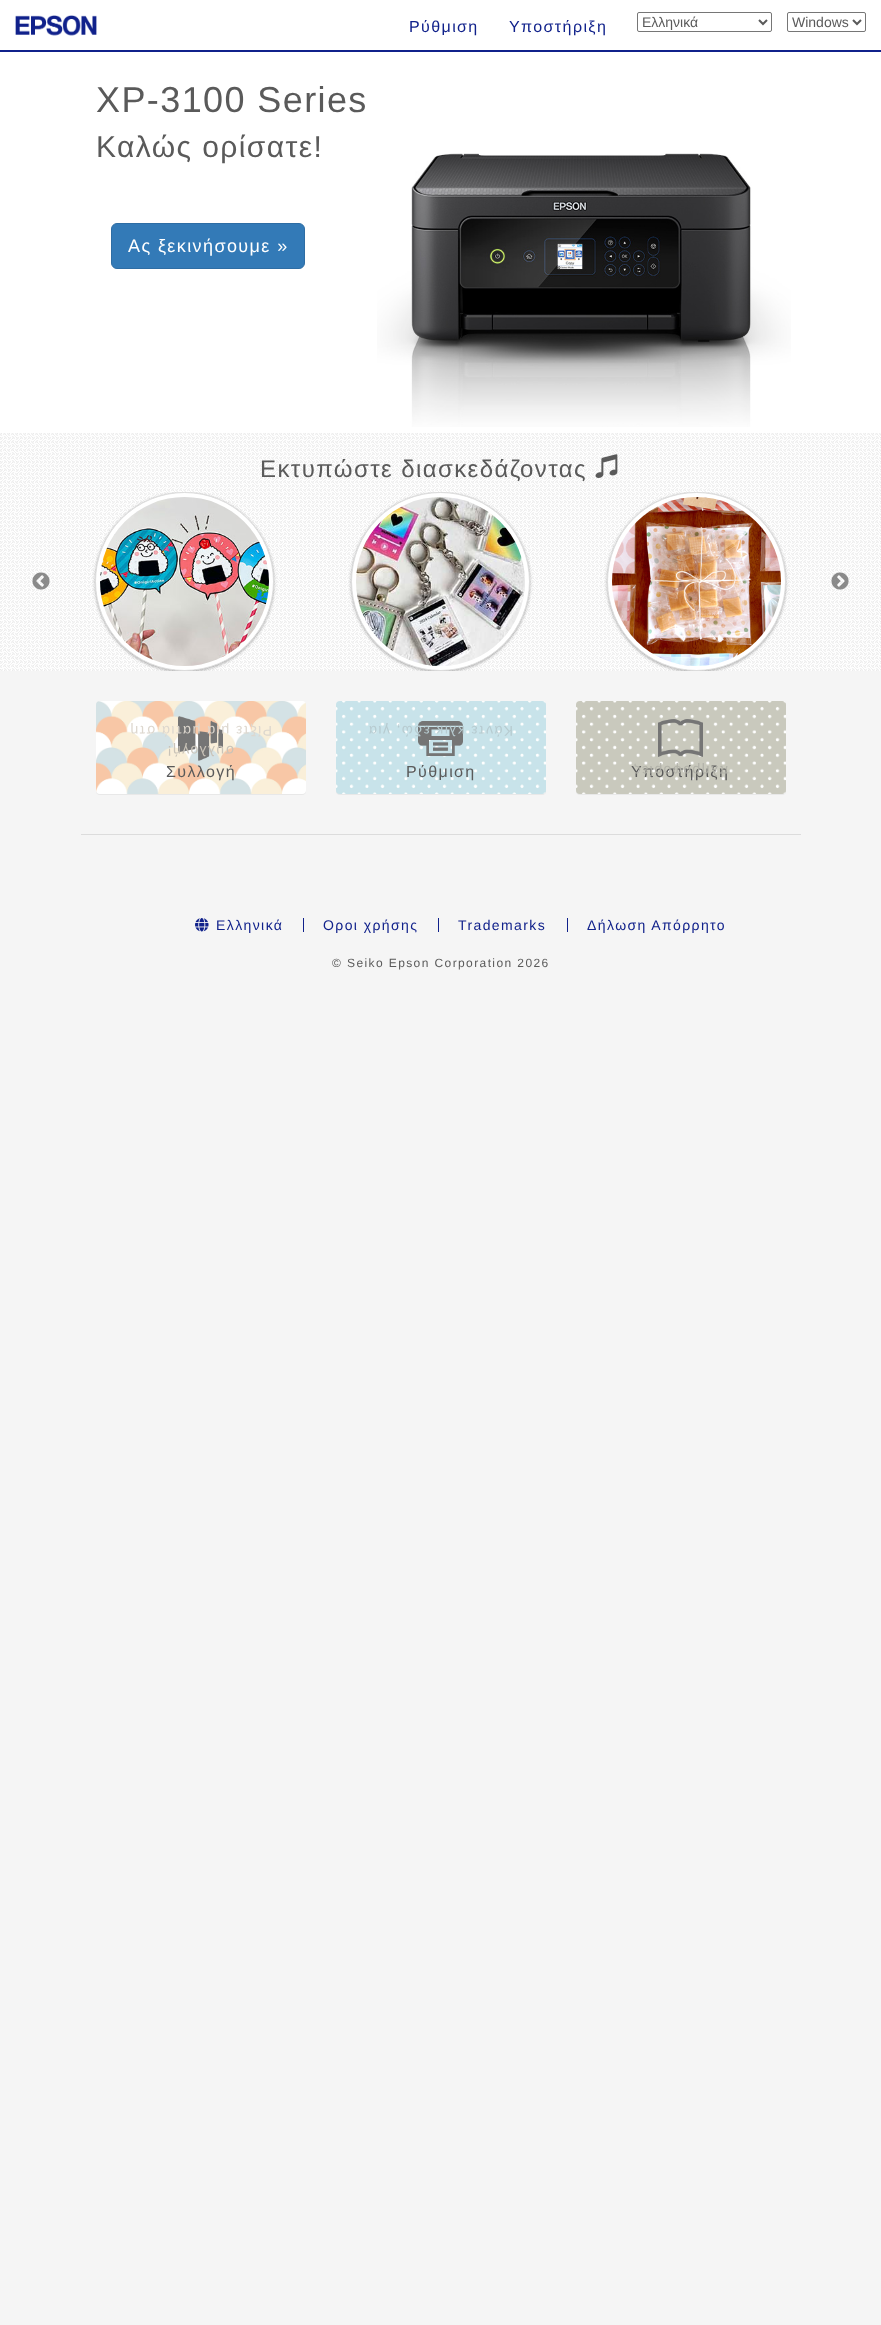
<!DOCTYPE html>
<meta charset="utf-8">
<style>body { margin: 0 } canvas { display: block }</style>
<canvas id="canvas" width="881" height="2325"></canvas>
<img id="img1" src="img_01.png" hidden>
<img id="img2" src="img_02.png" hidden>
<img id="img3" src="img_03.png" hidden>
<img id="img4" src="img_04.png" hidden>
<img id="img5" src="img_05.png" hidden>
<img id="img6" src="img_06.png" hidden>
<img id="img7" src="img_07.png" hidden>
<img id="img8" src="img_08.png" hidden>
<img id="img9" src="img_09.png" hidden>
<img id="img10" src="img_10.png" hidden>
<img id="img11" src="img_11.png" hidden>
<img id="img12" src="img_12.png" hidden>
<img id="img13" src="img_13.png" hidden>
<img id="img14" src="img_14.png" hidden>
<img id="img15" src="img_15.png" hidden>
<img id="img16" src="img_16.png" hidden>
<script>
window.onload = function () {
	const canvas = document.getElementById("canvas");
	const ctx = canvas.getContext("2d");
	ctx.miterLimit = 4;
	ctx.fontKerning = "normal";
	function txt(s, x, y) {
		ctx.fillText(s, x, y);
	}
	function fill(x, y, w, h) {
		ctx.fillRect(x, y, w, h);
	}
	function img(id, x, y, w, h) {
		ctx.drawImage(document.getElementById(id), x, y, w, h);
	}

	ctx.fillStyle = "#F5F5F5";
	fill(0, 0, 881, 2325);
	ctx.fillStyle = "#FFFFFF";
	fill(0, 0, 881, 50);
	ctx.fillStyle = "#10218B";
	fill(0, 50, 881, 2);
	img("img1", 15, 15, 82, 21);
	ctx.beginPath();
	ctx.roundRect(637.5, 12.5, 134, 19, 1.5);
	ctx.strokeStyle = "#767676";
	ctx.stroke();
	ctx.beginPath();
	ctx.moveTo(759, 20);
	ctx.lineTo(763, 24);
	ctx.lineTo(767, 20);
	ctx.strokeStyle = "#5A5A5A";
	ctx.lineWidth = 2;
	ctx.stroke();
	ctx.beginPath();
	ctx.roundRect(787.5, 12.5, 78, 19, 1.5);
	ctx.strokeStyle = "#767676";
	ctx.lineWidth = 1;
	ctx.stroke();
	ctx.beginPath();
	ctx.moveTo(853, 20);
	ctx.lineTo(857, 24);
	ctx.lineTo(861, 20);
	ctx.strokeStyle = "#5A5A5A";
	ctx.lineWidth = 2;
	ctx.stroke();
	ctx.fillStyle = "#FFFFFF";
	fill(0, 52, 881, 381);
	ctx.fillStyle = "#337AB7";
	ctx.beginPath();
	ctx.roundRect(111.5, 223.5, 193, 45, 5.5);
	ctx.fill();
	ctx.strokeStyle = "#2E6DA4";
	ctx.lineWidth = 1;
	ctx.stroke();
	img("img2", 377, 153, 414, 274);
	img("img3", 0, 433, 881, 238);
	img("img4", 595, 454, 23, 24);
	img("img5", 32, 572, 18, 18);
	ctx.save();
	ctx.beginPath();
	ctx.rect(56, 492, 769, 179);
	ctx.clip();
	ctx.fillStyle = "rgba(0, 0, 0, 0.3)";
	ctx.filter = "blur(1.5px)";
	ctx.beginPath();
	ctx.roundRect(95, 493, 179, 179, 89.5);
	ctx.fill();
	ctx.filter = "none";
	ctx.restore();
	ctx.fillStyle = "#FFFFFF";
	ctx.beginPath();
	ctx.arc(184.5, 581.5, 89, 0, Math.PI * 2);
	ctx.fill();
	ctx.strokeStyle = "#DDDDDD";
	ctx.stroke();
	img("img6", 100, 497, 169, 169);
	ctx.save();
	ctx.beginPath();
	ctx.rect(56, 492, 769, 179);
	ctx.clip();
	ctx.fillStyle = "rgba(0, 0, 0, 0.3)";
	ctx.filter = "blur(1.5px)";
	ctx.beginPath();
	ctx.roundRect(351, 493, 179, 179, 89.5);
	ctx.fill();
	ctx.filter = "none";
	ctx.restore();
	ctx.beginPath();
	ctx.arc(440.5, 581.5, 89, 0, Math.PI * 2);
	ctx.fill();
	ctx.stroke();
	img("img7", 356, 497, 169, 169);
	ctx.save();
	ctx.beginPath();
	ctx.rect(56, 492, 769, 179);
	ctx.clip();
	ctx.fillStyle = "rgba(0, 0, 0, 0.3)";
	ctx.filter = "blur(1.5px)";
	ctx.beginPath();
	ctx.roundRect(607, 493, 179, 179, 89.5);
	ctx.fill();
	ctx.filter = "none";
	ctx.restore();
	ctx.beginPath();
	ctx.arc(696.5, 581.5, 89, 0, Math.PI * 2);
	ctx.fill();
	ctx.stroke();
	img("img8", 612, 497, 169, 169);
	img("img9", 831, 572, 18, 18);
	ctx.fillStyle = "rgba(0, 0, 0, 0.05)";
	ctx.filter = "blur(0.5px)";
	ctx.beginPath();
	ctx.roundRect(96, 702, 210, 93, 4);
	ctx.fill();
	ctx.filter = "none";
	img("img10", 96, 701, 210, 93);
	img("img11", 178, 716, 45, 45);
	ctx.filter = "blur(0.5px)";
	ctx.beginPath();
	ctx.roundRect(336, 702, 210, 93, 4);
	ctx.fill();
	ctx.filter = "none";
	img("img12", 336, 701, 210, 93);
	img("img13", 418, 721, 45, 35);
	ctx.filter = "blur(0.5px)";
	ctx.beginPath();
	ctx.roundRect(576, 702, 210, 93, 4);
	ctx.fill();
	ctx.filter = "none";
	img("img14", 576, 701, 210, 93);
	img("img15", 658, 719, 45, 38);
	ctx.fillStyle = "#DCDCDC";
	fill(81, 834, 720, 1);
	img("img16", 195, 918, 14, 14);
	ctx.fillStyle = "#10218B";
	fill(303, 918, 1, 14);
	fill(438, 918, 1, 14);
	fill(567, 918, 1, 14);
	ctx.letterSpacing = "1.4px";
	ctx.font = "16px Liberation Sans";
	txt("Ρύθμιση", 409, 32);
	txt("Υποστήριξη", 509, 32);
	ctx.letterSpacing = "0px";
	ctx.font = "14px Liberation Sans";
	ctx.fillStyle = "#5A5A5A";
	txt("Ελληνικά", 642, 27);
	txt("Windows", 792, 27);
	ctx.letterSpacing = "1.4px";
	ctx.font = "36px Liberation Sans";
	txt("XP-3100 Series", 96, 112);
	ctx.font = "30px Liberation Sans";
	txt("Καλώς ορίσατε!", 96, 157);
	ctx.font = "18px Liberation Sans";
	ctx.fillStyle = "#FFFFFF";
	txt("Ας ξεκινήσουμε »", 128, 252);
	ctx.font = "24px Liberation Sans";
	ctx.fillStyle = "#5A5A5A";
	txt("Εκτυπώστε διασκεδάζοντας", 260, 477);
	ctx.font = "14px Liberation Sans";
	ctx.fillStyle = "#DDD7CE";
	ctx.save();
	ctx.translate(272, 726);
	ctx.rotate(180 * Math.PI / 180);
	ctx.fillText("Ρίξτε μια ματιά στη", 0, 0);
	ctx.restore();
	ctx.fillStyle = "#C9C3B8";
	ctx.save();
	ctx.translate(234, 746);
	ctx.rotate(180 * Math.PI / 180);
	ctx.fillText("συλλογή!", 0, 0);
	ctx.restore();
	ctx.font = "16px Liberation Sans";
	ctx.fillStyle = "#5A5A5A";
	txt("Συλλογή", 166, 777);
	ctx.font = "14px Liberation Sans";
	ctx.fillStyle = "#B7CBD0";
	ctx.save();
	ctx.translate(513, 726);
	ctx.rotate(180 * Math.PI / 180);
	ctx.fillText("Κάντε κλικ εδώ, για", 0, 0);
	ctx.restore();
	ctx.font = "16px Liberation Sans";
	ctx.fillStyle = "#5A5A5A";
	txt("Ρύθμιση", 406, 777);
	txt("Υποστήριξη", 631, 777);
	ctx.font = "14px Liberation Sans";
	ctx.fillStyle = "#B2B2A9";
	ctx.save();
	ctx.translate(729, 766);
	ctx.rotate(180 * Math.PI / 180);
	ctx.fillText("πληροφορίες", 0, 0);
	ctx.restore();
	ctx.fillStyle = "#10218B";
	txt("Ελληνικά", 216, 930);
	txt("Οροι χρήσης", 323, 930);
	txt("Trademarks", 458, 930);
	txt("Δήλωση Απόρρητο", 587, 930);
	ctx.font = "12px Liberation Sans";
	ctx.fillStyle = "#5A5A5A";
	txt("© Seiko Epson Corporation 2026", 332, 967);
};
</script>
